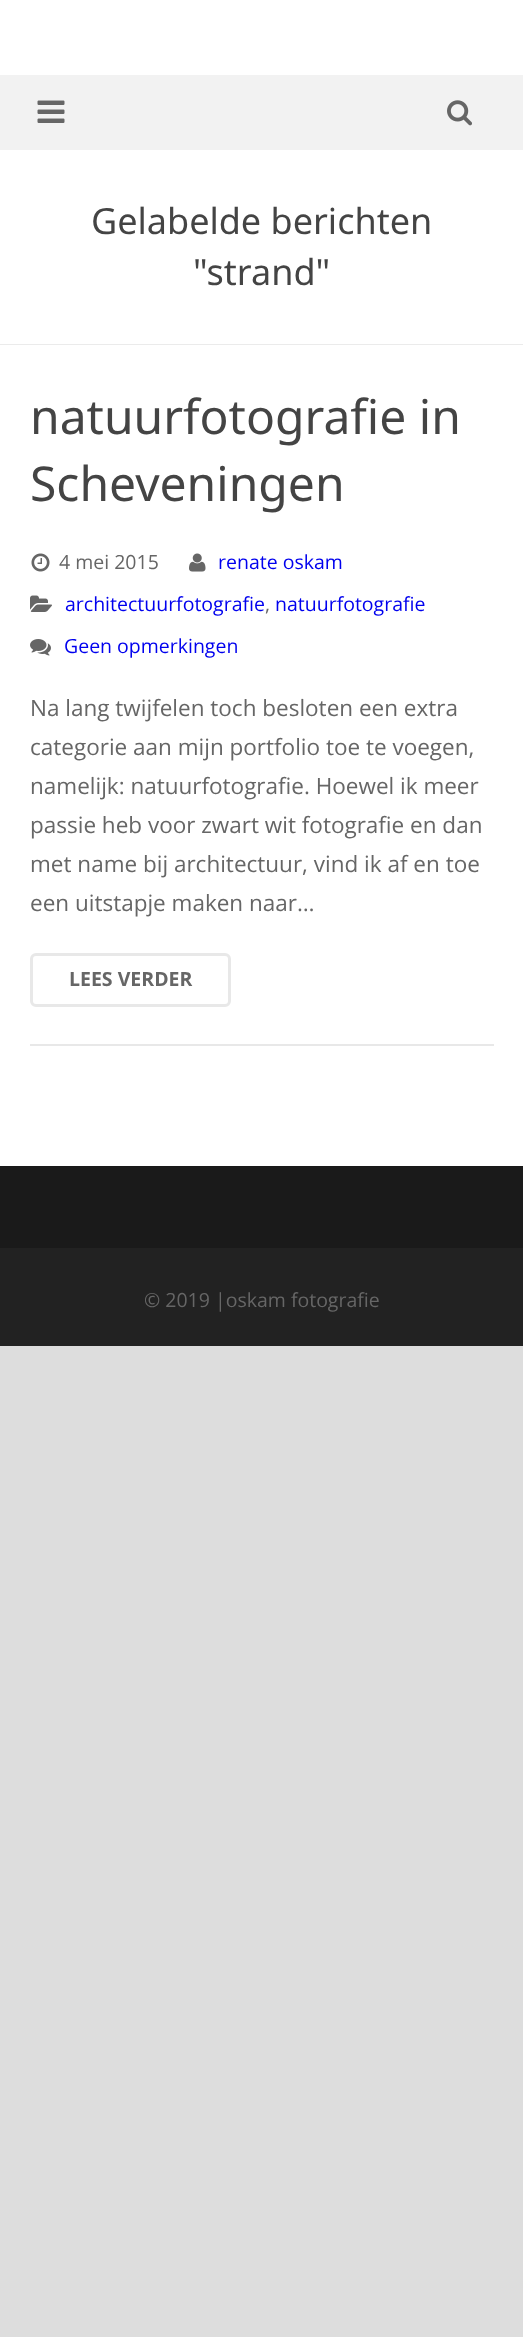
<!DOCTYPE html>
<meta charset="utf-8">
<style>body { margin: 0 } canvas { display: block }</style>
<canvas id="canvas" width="523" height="2337"></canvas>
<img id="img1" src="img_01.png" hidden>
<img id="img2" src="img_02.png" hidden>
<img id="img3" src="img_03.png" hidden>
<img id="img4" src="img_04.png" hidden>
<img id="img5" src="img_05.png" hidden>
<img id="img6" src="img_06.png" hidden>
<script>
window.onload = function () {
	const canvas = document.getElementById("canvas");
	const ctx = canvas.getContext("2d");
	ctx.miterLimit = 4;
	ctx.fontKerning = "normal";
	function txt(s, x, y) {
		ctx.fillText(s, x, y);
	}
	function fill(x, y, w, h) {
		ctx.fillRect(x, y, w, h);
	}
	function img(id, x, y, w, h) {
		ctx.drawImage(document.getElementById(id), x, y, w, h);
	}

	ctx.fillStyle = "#DDDDDD";
	fill(0, 0, 523, 2337);
	ctx.fillStyle = "#FFFFFF";
	fill(0, 0, 523, 1166);
	ctx.fillStyle = "#F2F2F2";
	fill(0, 75, 523, 75);
	img("img1", 37, 100, 28, 23);
	img("img2", 447, 100, 25, 26);
	ctx.fillStyle = "#181818";
	ctx.beginPath();
	ctx.moveTo(0, 1166);
	ctx.lineTo(0, 1167);
	ctx.lineTo(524, 1167);
	ctx.lineTo(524, 152);
	ctx.lineTo(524, 1166);
	ctx.closePath();
	ctx.fill();
	ctx.save();
	ctx.beginPath();
	ctx.rect(0, 150, 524, 195);
	ctx.clip();
	ctx.fillStyle = "#EBEBEB";
	ctx.beginPath();
	ctx.moveTo(-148, 2);
	ctx.lineTo(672, 2);
	ctx.lineTo(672, 494);
	ctx.lineTo(-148, 494);
	ctx.closePath();
	ctx.moveTo(0, 146);
	ctx.lineTo(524, 146);
	ctx.bezierCurveTo(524, 146, 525, 146, 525, 147);
	ctx.lineTo(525, 342);
	ctx.bezierCurveTo(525, 343, 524, 344, 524, 344);
	ctx.lineTo(0, 344);
	ctx.bezierCurveTo(-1, 344, -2, 343, -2, 342);
	ctx.lineTo(-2, 147);
	ctx.bezierCurveTo(-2, 146, -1, 146, 0, 146);
	ctx.closePath();
	ctx.fill("evenodd");
	ctx.restore();
	ctx.fillStyle = "#E8E8E8";
	fill(30, 1044, 464, 2);
	img("img3", 31, 553, 19, 19);
	img("img4", 189, 553, 17, 19);
	img("img5", 30, 595, 22, 17);
	img("img6", 30, 639, 21, 17);
	ctx.beginPath();
	ctx.roundRect(31.5, 954.5, 198, 51, 4.5);
	ctx.strokeStyle = "#E8E8E8";
	ctx.lineWidth = 3;
	ctx.stroke();
	ctx.fillStyle = "#1A1A1A";
	fill(0, 1167, 523, 81);
	ctx.fillStyle = "#222222";
	fill(0, 1248, 523, 98);
	ctx.font = "36px Noto Sans";
	ctx.fillStyle = "#444444";
	txt("Gelabelde berichten", 91, 234);
	txt("\"strand\"", 193, 285);
	ctx.font = "48px Noto Sans";
	txt("natuurfotografie in", 30, 434);
	txt("Scheveningen", 30, 501);
	ctx.font = "19.5px Open Sans";
	ctx.fillStyle = "#666666";
	txt("4 mei 2015", 59, 569);
	ctx.fillStyle = "#0000EE";
	txt("renate oskam", 218, 569);
	txt("architectuurfotografie", 65, 611);
	ctx.fillStyle = "#666666";
	txt(",", 265, 611);
	ctx.fillStyle = "#0000EE";
	txt("natuurfotografie", 275, 611);
	txt("Geen opmerkingen", 64, 653);
	ctx.font = "22.5px Open Sans";
	ctx.fillStyle = "#666666";
	txt("Na lang twijfelen toch besloten een extra", 30, 716);
	txt("categorie aan mijn portfolio toe te voegen,", 30, 755);
	txt("namelijk: natuurfotografie. Hoewel ik meer", 30, 794);
	txt("passie heb voor zwart wit fotografie en dan", 30, 833);
	txt("met name bij architectuur, vind ik af en toe", 30, 872);
	txt("een uitstapje maken naar…", 30, 911);
	ctx.font = "bold 19.5px Open Sans";
	txt("LEES VERDER", 69, 986);
	ctx.font = "19.5px Open Sans";
	txt("© 2019 |oskam fotografie", 144, 1307);
};
</script>
